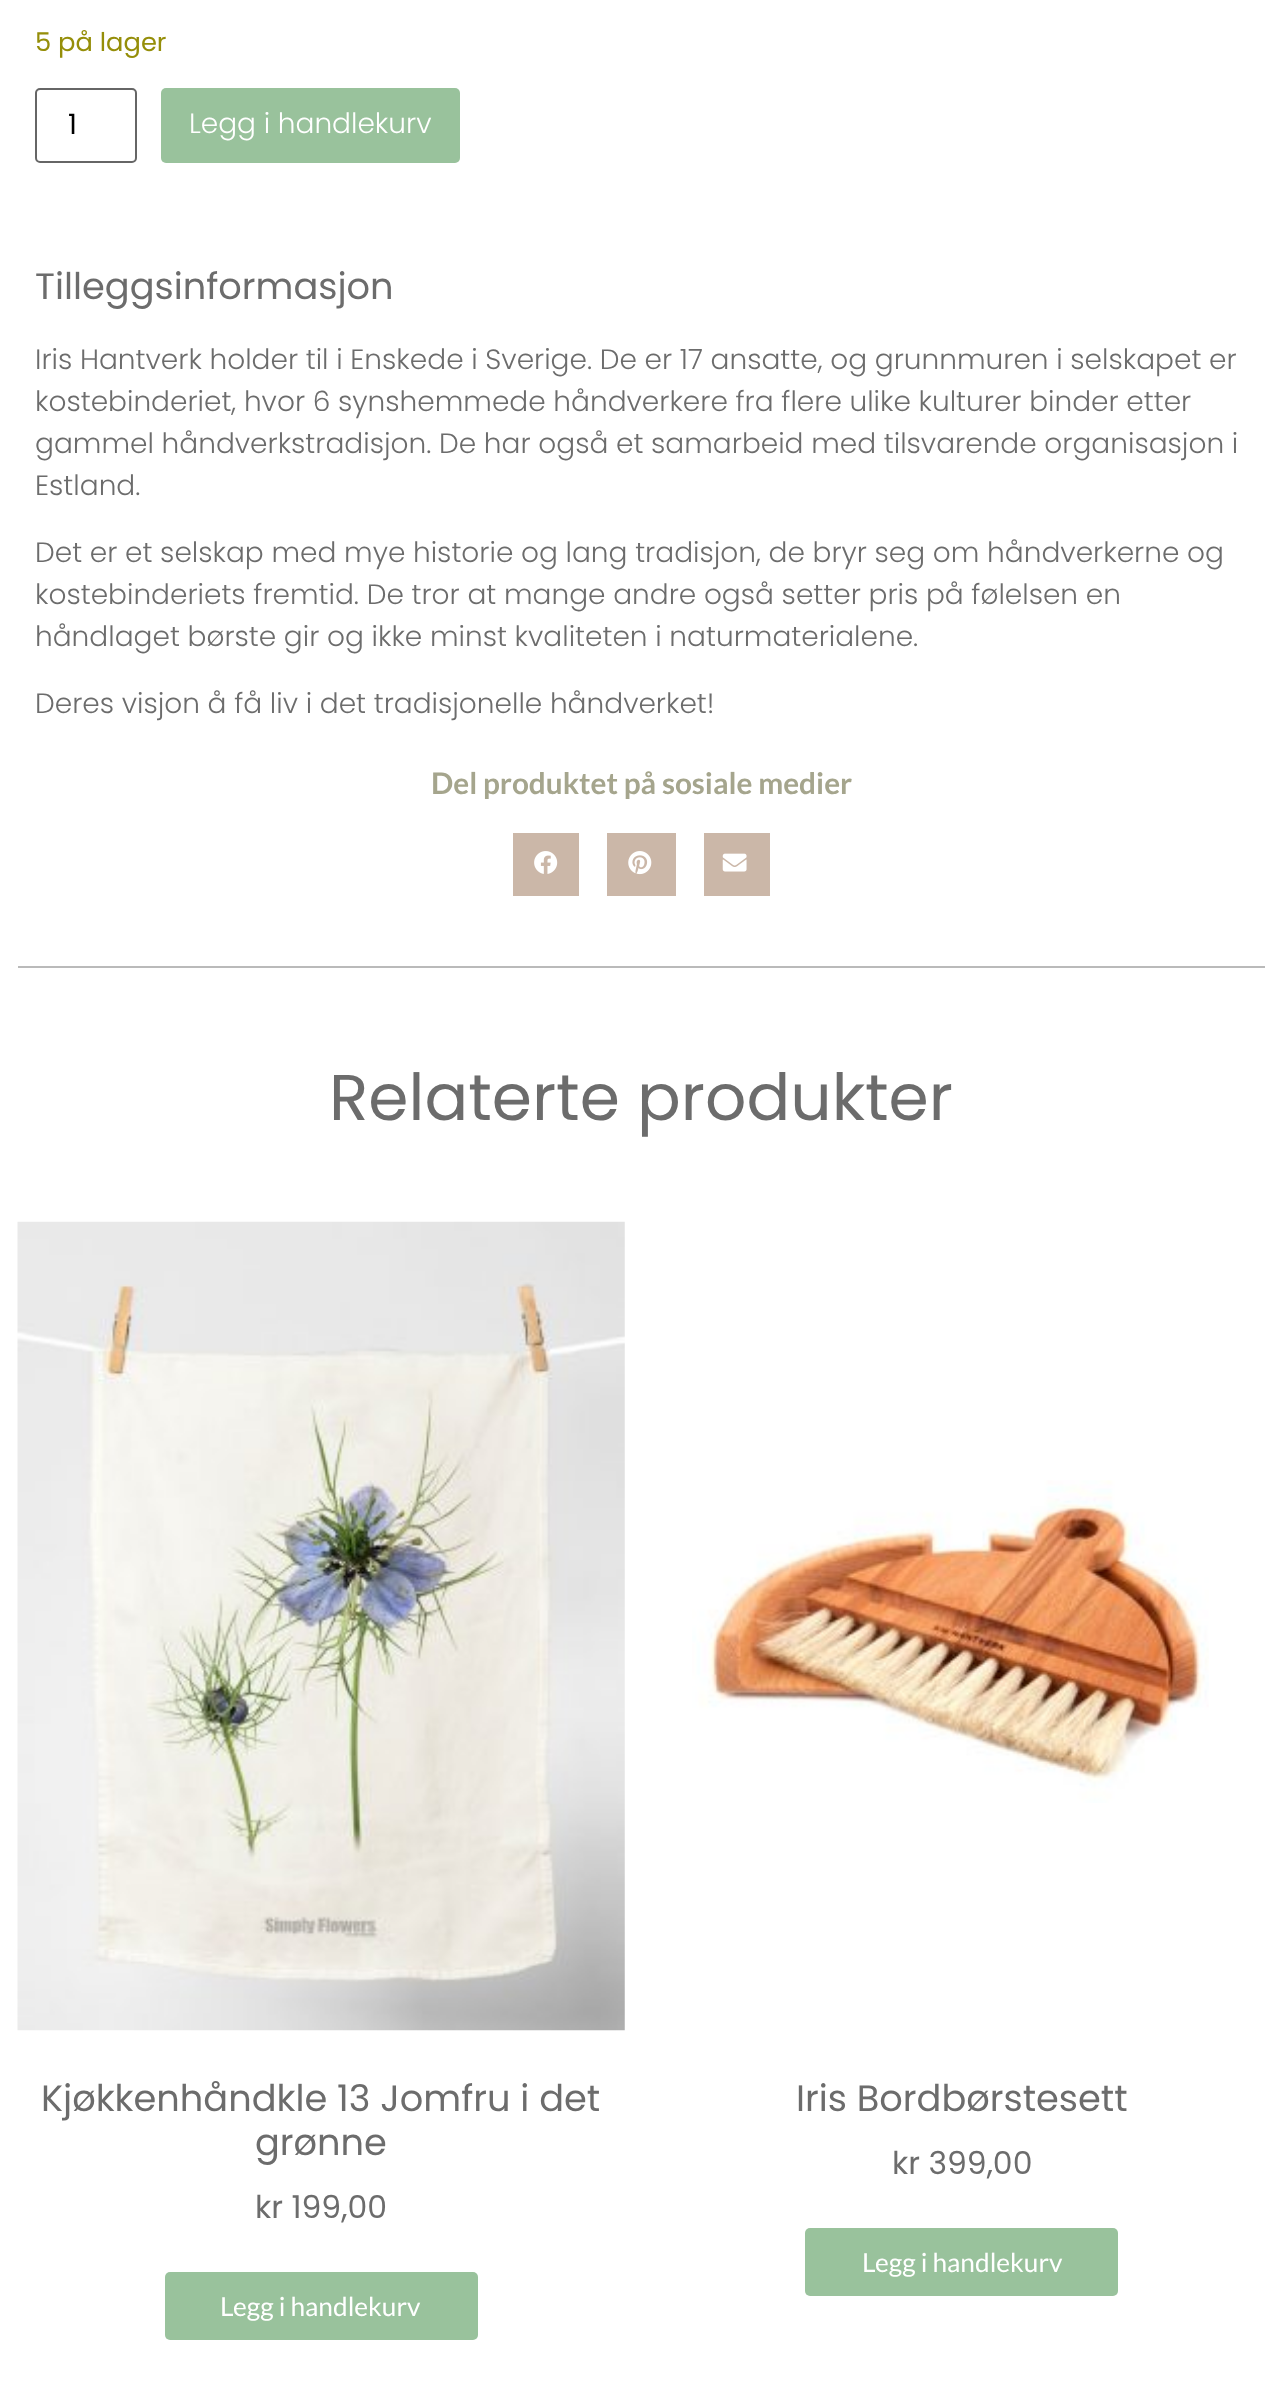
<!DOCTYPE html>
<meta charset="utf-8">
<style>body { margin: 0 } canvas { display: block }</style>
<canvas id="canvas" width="1282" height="2407"></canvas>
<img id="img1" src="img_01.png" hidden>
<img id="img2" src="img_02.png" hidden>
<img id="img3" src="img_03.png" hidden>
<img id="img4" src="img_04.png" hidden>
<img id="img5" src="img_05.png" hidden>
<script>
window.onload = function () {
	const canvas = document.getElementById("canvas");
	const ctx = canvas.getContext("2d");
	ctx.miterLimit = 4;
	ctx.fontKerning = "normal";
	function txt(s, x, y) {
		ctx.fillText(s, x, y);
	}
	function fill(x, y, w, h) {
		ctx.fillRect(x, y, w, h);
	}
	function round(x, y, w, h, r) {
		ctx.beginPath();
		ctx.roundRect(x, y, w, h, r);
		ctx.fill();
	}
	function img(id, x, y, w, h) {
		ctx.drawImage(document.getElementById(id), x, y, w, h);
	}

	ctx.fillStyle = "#FFFFFF";
	fill(0, 0, 1282, 2407);
	ctx.beginPath();
	ctx.roundRect(36, 89, 100, 73, 4);
	ctx.strokeStyle = "#666666";
	ctx.lineWidth = 2;
	ctx.stroke();
	ctx.fillStyle = "#99C29C";
	round(161, 88, 299, 75, 5);
	ctx.strokeStyle = "#CBB7A8";
	ctx.lineWidth = 4;
	ctx.strokeRect(515, 835, 62, 59);
	ctx.fillStyle = "#CBB7A8";
	fill(517, 837, 58, 55);
	img("img1", 534, 851, 24, 23);
	ctx.strokeRect(609, 835, 65, 59);
	fill(611, 837, 61, 55);
	img("img2", 628, 851, 24, 24);
	ctx.strokeRect(706, 835, 62, 59);
	fill(708, 837, 58, 55);
	img("img3", 722, 853, 25, 19);
	ctx.fillStyle = "#BABABA";
	fill(18, 966, 1247, 2);
	img("img4", 17, 1221, 608, 810);
	ctx.fillStyle = "#99C29C";
	round(165, 2272, 313, 68, 5);
	img("img5", 692, 1480, 517, 323);
	round(805, 2228, 313, 68, 5);
	ctx.font = "25.75px Poppins";
	ctx.fillStyle = "#958E09";
	txt("5 på lager", 35, 51);
	ctx.font = "28px Poppins";
	ctx.fillStyle = "#000000";
	txt("1", 68, 134);
	ctx.font = "300 28px Poppins";
	ctx.fillStyle = "#FFFFFF";
	txt("Legg i handlekurv", 189, 133);
	ctx.font = "36.75px Poppins";
	ctx.fillStyle = "#6C6C6C";
	txt("Tilleggsinformasjon", 35, 299);
	ctx.font = "300 28px Poppins";
	txt("Iris Hantverk holder til i Enskede i Sverige. De er 17 ansatte, og grunnmuren i selskapet er", 35, 369);
	txt("kostebinderiet, hvor 6 synshemmede håndverkere fra flere ulike kulturer binder etter", 35, 411);
	txt("gammel håndverkstradisjon. De har også et samarbeid med tilsvarende organisasjon i", 35, 453);
	txt("Estland.", 35, 495);
	txt("Det er et selskap med mye historie og lang tradisjon, de bryr seg om håndverkerne og", 35, 562);
	txt("kostebinderiets fremtid. De tror at mange andre også setter pris på følelsen en", 35, 604);
	txt("håndlaget børste gir og ikke minst kvaliteten i naturmaterialene.", 35, 646);
	txt("Deres visjon å få liv i det tradisjonelle håndverket!", 35, 713);
	ctx.font = "bold 29.75px Lato";
	ctx.fillStyle = "#A5A58D";
	txt("Del produktet på sosiale medier", 431, 794);
	ctx.font = "64.75px Poppins";
	ctx.fillStyle = "#6C6C6C";
	txt("Relaterte produkter", 329, 1120);
	ctx.font = "36.75px Poppins";
	txt("Kjøkkenhåndkle 13 Jomfru i det", 41, 2111);
	txt("grønne", 255, 2155);
	ctx.font = "31.5px Poppins";
	txt("kr 199,00", 255, 2218);
	ctx.font = "26.25px Lato";
	ctx.fillStyle = "#FFFFFF";
	txt("Legg i handlekurv", 220, 2316);
	ctx.font = "36.75px Poppins";
	ctx.fillStyle = "#6C6C6C";
	txt("Iris Bordbørstesett", 796, 2111);
	ctx.font = "31.5px Poppins";
	txt("kr 399,00", 892, 2174);
	ctx.font = "26.25px Lato";
	ctx.fillStyle = "#FFFFFF";
	txt("Legg i handlekurv", 862, 2272);
};
</script>
